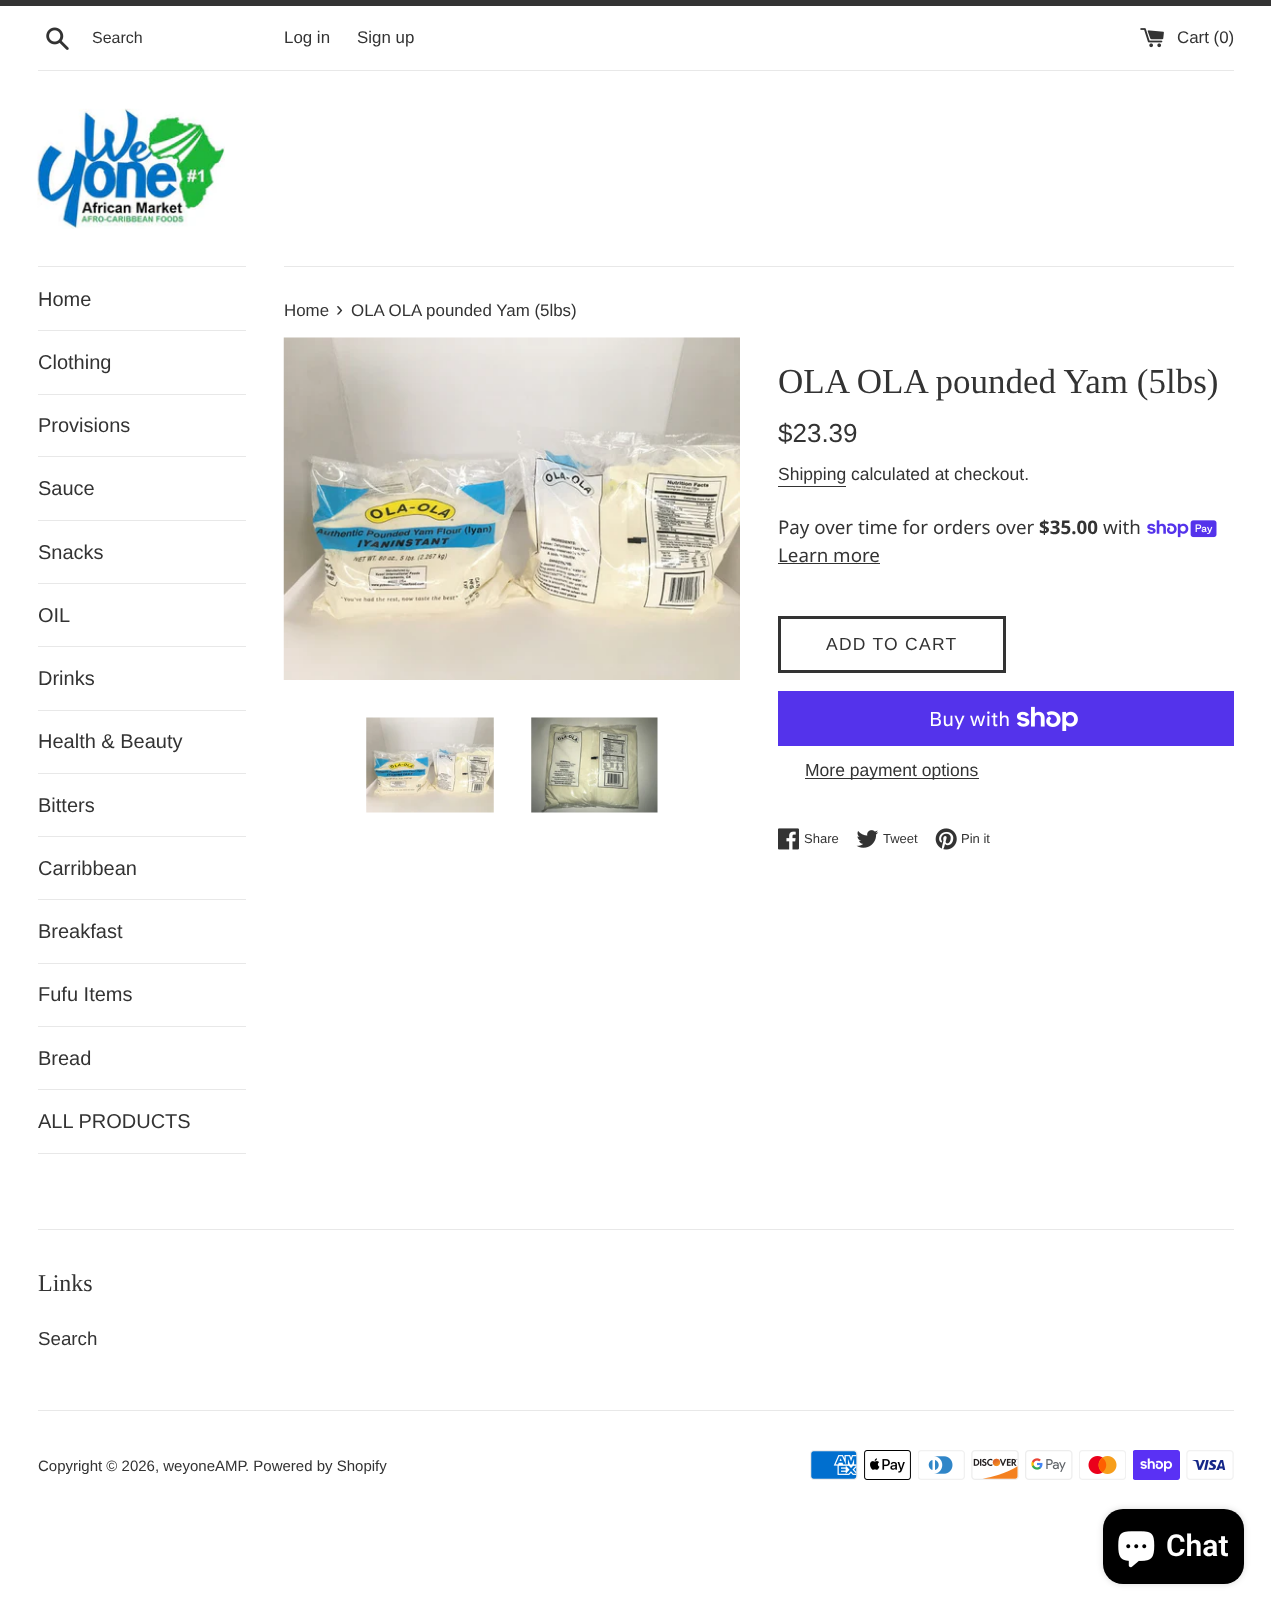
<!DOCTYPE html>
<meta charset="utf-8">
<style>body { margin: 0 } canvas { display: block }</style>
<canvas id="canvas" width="1271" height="1609"></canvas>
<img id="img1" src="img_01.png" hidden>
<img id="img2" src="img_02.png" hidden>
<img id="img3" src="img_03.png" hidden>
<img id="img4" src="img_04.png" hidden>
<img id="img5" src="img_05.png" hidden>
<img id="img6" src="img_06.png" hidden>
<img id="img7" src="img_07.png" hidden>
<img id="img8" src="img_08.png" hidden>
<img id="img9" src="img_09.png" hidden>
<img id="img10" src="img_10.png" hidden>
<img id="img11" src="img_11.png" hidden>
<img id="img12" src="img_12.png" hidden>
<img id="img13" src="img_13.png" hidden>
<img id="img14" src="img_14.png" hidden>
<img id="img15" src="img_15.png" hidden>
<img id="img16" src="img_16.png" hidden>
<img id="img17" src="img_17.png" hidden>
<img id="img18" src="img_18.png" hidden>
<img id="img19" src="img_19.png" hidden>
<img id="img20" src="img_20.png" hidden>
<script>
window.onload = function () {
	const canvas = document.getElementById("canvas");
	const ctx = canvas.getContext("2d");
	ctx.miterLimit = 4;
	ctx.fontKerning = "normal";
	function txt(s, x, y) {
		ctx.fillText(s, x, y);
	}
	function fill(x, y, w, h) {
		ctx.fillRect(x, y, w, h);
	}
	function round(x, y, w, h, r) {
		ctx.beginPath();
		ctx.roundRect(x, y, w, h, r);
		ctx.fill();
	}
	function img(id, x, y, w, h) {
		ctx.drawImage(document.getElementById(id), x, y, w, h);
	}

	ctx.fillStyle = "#FFFFFF";
	fill(0, 0, 1271, 1609);
	ctx.fillStyle = "#333333";
	fill(0, 0, 1271, 6);
	img("img1", 46, 27, 23, 23);
	img("img2", 1140, 28, 24, 20);
	ctx.fillStyle = "#E8E8E8";
	fill(38, 70, 1196, 1);
	img("img3", 37, 108, 188, 121);
	fill(38, 266, 208, 1);
	fill(38, 330, 208, 1);
	fill(38, 394, 208, 1);
	fill(38, 456, 208, 1);
	fill(38, 520, 208, 1);
	fill(38, 583, 208, 1);
	fill(38, 646, 208, 1);
	fill(38, 710, 208, 1);
	fill(38, 773, 208, 1);
	fill(38, 836, 208, 1);
	fill(38, 899, 208, 1);
	fill(38, 963, 208, 1);
	fill(38, 1026, 208, 1);
	fill(38, 1089, 208, 1);
	fill(38, 1153, 208, 1);
	fill(284, 266, 950, 1);
	img("img4", 283, 337, 457, 343);
	img("img5", 366, 717, 128, 96);
	img("img6", 531, 717, 127, 96);
	ctx.fillStyle = "#333333";
	fill(778, 486, 68, 1);
	img("img7", 1147, 520, 70, 18);
	fill(778, 563, 102, 1);
	ctx.strokeStyle = "#333333";
	ctx.lineWidth = 3;
	ctx.strokeRect(779.5, 617.5, 225, 54);
	ctx.fillStyle = "#5433EB";
	fill(778, 691, 456, 55);
	img("img8", 1016, 706, 62, 25);
	ctx.fillStyle = "#333333";
	fill(805, 778, 174, 1);
	img("img9", 778, 828, 21, 22);
	img("img10", 856, 830, 23, 18);
	img("img11", 935, 828, 22, 22);
	ctx.fillStyle = "#E8E8E8";
	fill(38, 1229, 1196, 1);
	fill(38, 1410, 1196, 1);
	img("img12", 810, 1450, 48, 30);
	img("img13", 864, 1450, 47, 30);
	img("img14", 918, 1450, 47, 30);
	img("img15", 971, 1450, 48, 30);
	img("img16", 1025, 1450, 48, 30);
	img("img17", 1079, 1450, 47, 30);
	img("img18", 1133, 1450, 47, 30);
	img("img19", 1186, 1450, 48, 30);
	ctx.fillStyle = "rgba(0, 0, 0, 0.15)";
	ctx.filter = "blur(3px)";
	ctx.beginPath();
	ctx.roundRect(1103, 1509, 141, 75, 20);
	ctx.fill();
	ctx.filter = "none";
	ctx.fillStyle = "#000000";
	round(1103, 1509, 141, 75, 20);
	img("img20", 1118, 1531, 37, 37);
	ctx.font = "16px Liberation Sans";
	ctx.fillStyle = "#333333";
	txt("Search", 92, 43);
	ctx.font = "16.9px Liberation Sans";
	txt("Log in", 284, 43);
	txt("Sign up", 357, 43);
	txt("Cart (0)", 1177, 43);
	ctx.font = "20px Liberation Sans";
	txt("Home", 38, 306);
	txt("Clothing", 38, 369);
	txt("Provisions", 38, 432);
	txt("Sauce", 38, 495);
	txt("Snacks", 38, 559);
	txt("OIL", 38, 622);
	txt("Drinks", 38, 685);
	txt("Health & Beauty", 38, 748);
	txt("Bitters", 38, 812);
	txt("Carribbean", 38, 875);
	txt("Breakfast", 38, 938);
	txt("Fufu Items", 38, 1001);
	txt("Bread", 38, 1065);
	txt("ALL PRODUCTS", 38, 1128);
	ctx.font = "16.9px Liberation Sans";
	txt("Home", 284, 316);
	ctx.font = "21px Liberation Sans";
	txt("›", 336, 316);
	ctx.font = "16.9px Liberation Sans";
	txt("OLA OLA pounded Yam (5lbs)", 351, 316);
	ctx.font = "35px Liberation Serif";
	txt("OLA OLA pounded Yam (5lbs)", 778, 393);
	ctx.font = "26px Liberation Sans";
	txt("$23.39", 778, 442);
	ctx.font = "17.5px Liberation Sans";
	txt("Shipping calculated at checkout.", 778, 480);
	ctx.font = "18.75px Noto Sans";
	txt("Pay over time for orders over", 778, 534);
	ctx.font = "bold 18.75px Noto Sans";
	txt("$35.00", 1039, 534);
	ctx.font = "18.75px Noto Sans";
	txt("with", 1103, 534);
	txt("Learn more", 778, 562);
	ctx.letterSpacing = "1.25px";
	ctx.font = "17.5px Liberation Sans";
	txt("ADD TO CART", 826, 650);
	ctx.letterSpacing = "0px";
	ctx.font = "20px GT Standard";
	ctx.fillStyle = "#FFFFFF";
	txt("Buy with", 929, 726);
	ctx.font = "17.5px Liberation Sans";
	ctx.fillStyle = "#333333";
	txt("More payment options", 805, 776);
	ctx.font = "13px Liberation Sans";
	txt("Share", 804, 843);
	txt("Tweet", 883, 843);
	txt("Pin it", 961, 843);
	ctx.font = "24px Liberation Serif";
	txt("Links", 38, 1291);
	ctx.font = "18.75px Liberation Sans";
	txt("Search", 38, 1345);
	ctx.font = "15px Liberation Sans";
	txt("Copyright © 2026, weyoneAMP", 38, 1471);
	txt(". Powered by Shopify", 245, 1471);
	ctx.font = "600 30px Roboto";
	ctx.fillStyle = "#FFFFFF";
	txt("Chat", 1166, 1556);
};
</script>
